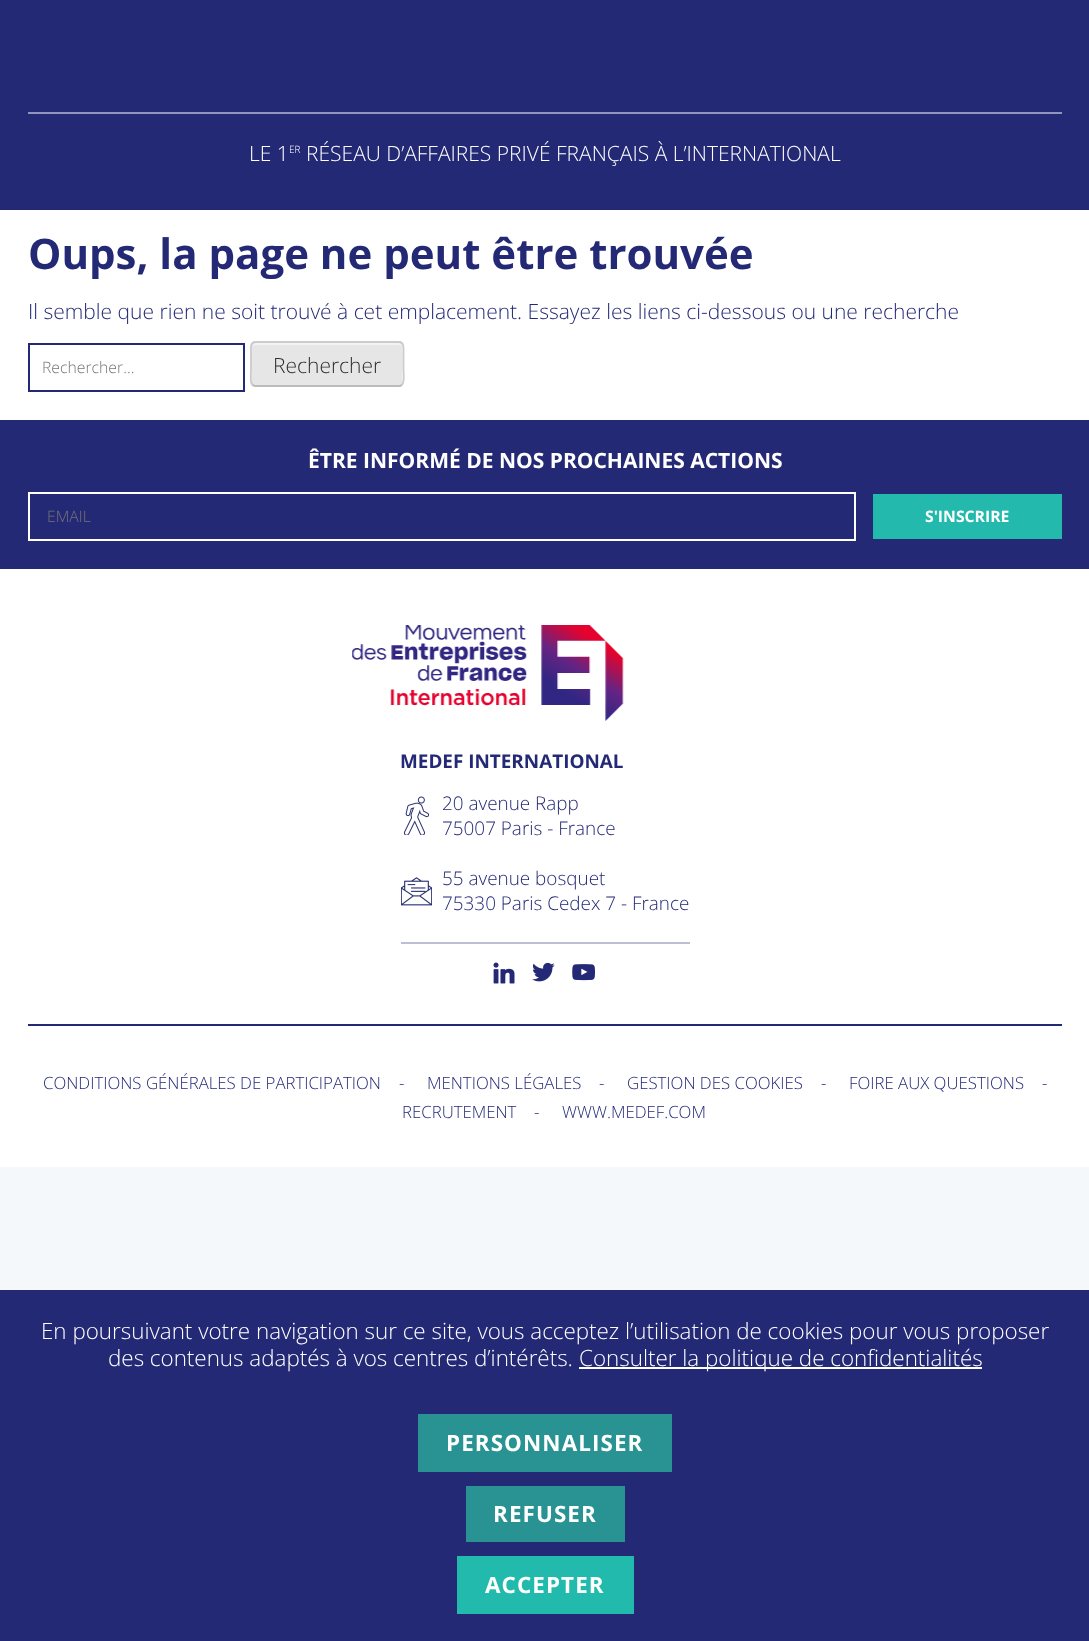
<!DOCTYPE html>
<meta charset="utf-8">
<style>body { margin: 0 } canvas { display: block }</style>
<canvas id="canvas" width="1089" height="1641"></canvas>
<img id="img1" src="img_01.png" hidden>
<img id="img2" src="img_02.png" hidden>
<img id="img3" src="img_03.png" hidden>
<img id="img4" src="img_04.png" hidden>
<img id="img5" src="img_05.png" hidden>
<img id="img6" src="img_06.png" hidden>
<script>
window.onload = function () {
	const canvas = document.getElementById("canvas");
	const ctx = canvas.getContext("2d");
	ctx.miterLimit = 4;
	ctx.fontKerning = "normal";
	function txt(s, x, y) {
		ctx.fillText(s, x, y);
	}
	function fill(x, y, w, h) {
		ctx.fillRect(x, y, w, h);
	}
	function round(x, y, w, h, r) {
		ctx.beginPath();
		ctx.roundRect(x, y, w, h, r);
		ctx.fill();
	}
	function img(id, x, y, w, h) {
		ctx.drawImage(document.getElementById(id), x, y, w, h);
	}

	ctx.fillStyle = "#F5F8FA";
	fill(0, 0, 1089, 1641);
	ctx.fillStyle = "#FFFFFF";
	fill(0, 210, 1089, 957);
	ctx.fillStyle = "#242976";
	fill(0, 0, 1089, 210);
	ctx.fillStyle = "#9294BB";
	fill(28, 112, 1034, 2);
	ctx.strokeStyle = "#242976";
	ctx.lineWidth = 2;
	ctx.strokeRect(29, 344, 215, 47);
	ctx.fillStyle = "#E6E6E6";
	round(250, 341, 154, 46, 5);
	ctx.fillStyle = "#F3F3F3";
	ctx.beginPath();
	ctx.moveTo(256, 345);
	ctx.lineTo(399, 345);
	ctx.bezierCurveTo(401, 345, 402, 346, 402, 348);
	ctx.lineTo(402, 384);
	ctx.bezierCurveTo(403, 383, 403, 382, 403, 381);
	ctx.lineTo(403, 347);
	ctx.bezierCurveTo(403, 345, 401, 343, 399, 343);
	ctx.lineTo(256, 343);
	ctx.bezierCurveTo(254, 343, 252, 345, 252, 347);
	ctx.lineTo(252, 348);
	ctx.bezierCurveTo(252, 346, 254, 345, 256, 345);
	ctx.closePath();
	ctx.fill();
	ctx.beginPath();
	ctx.moveTo(402, 384.5);
	ctx.bezierCurveTo(401.5, 385.5, 400, 386, 399, 386);
	ctx.lineTo(255.5, 386);
	ctx.bezierCurveTo(254.5, 386, 253, 385.5, 252.5, 384.5);
	ctx.strokeStyle = "#BBBBBB";
	ctx.lineWidth = 1.8;
	ctx.stroke();
	ctx.beginPath();
	ctx.moveTo(252.5, 384.5);
	ctx.bezierCurveTo(249.5, 382, 251, 373, 251, 370);
	ctx.lineTo(251, 352.5);
	ctx.bezierCurveTo(251, 349, 250, 342, 255.5, 342);
	ctx.lineTo(399, 342);
	ctx.bezierCurveTo(404.5, 342, 403.5, 349, 403.5, 352.5);
	ctx.lineTo(403.5, 370);
	ctx.bezierCurveTo(403.5, 373, 405, 382, 402, 384.5);
	ctx.strokeStyle = "#CCCCCC";
	ctx.stroke();
	ctx.fillStyle = "#242976";
	fill(0, 420, 1089, 149);
	ctx.strokeStyle = "#FFFFFF";
	ctx.lineWidth = 2;
	ctx.strokeRect(29, 493, 826, 47);
	ctx.fillStyle = "#23B9AD";
	fill(873, 494, 189, 45);
	img("img1", 352, 625, 272, 96);
	img("img2", 403, 796, 27, 39);
	img("img3", 401, 877, 31, 29);
	ctx.fillStyle = "#BDBFD6";
	fill(401, 942, 289, 2);
	img("img4", 493, 962, 22, 22);
	img("img5", 532, 962, 23, 20);
	img("img6", 572, 964, 23, 17);
	ctx.fillStyle = "#242976";
	fill(28, 1024, 1034, 2);
	fill(0, 1290, 1089, 351);
	ctx.fillStyle = "#FFFFFF";
	fill(579, 1367, 403, 2);
	ctx.fillStyle = "#299293";
	fill(418, 1414, 254, 58);
	fill(466, 1486, 159, 56);
	ctx.fillStyle = "#22BAAD";
	fill(457, 1556, 177, 58);
	ctx.font = "300 21px Open Sans";
	ctx.fillStyle = "#FFFFFF";
	txt("LE 1", 249, 161);
	ctx.font = "300 10px Open Sans";
	txt("ER", 289, 153);
	ctx.font = "300 21px Open Sans";
	txt("RÉSEAU D’AFFAIRES PRIVÉ FRANÇAIS À L’INTERNATIONAL", 306, 161);
	ctx.font = "bold 42px Open Sans";
	ctx.fillStyle = "#242976";
	txt("Oups, la page ne peut être trouvée", 28, 269);
	ctx.font = "300 21px Open Sans";
	txt("Il semble que rien ne soit trouvé à cet emplacement. Essayez les liens ci-dessous ou une recherche", 28, 319);
	ctx.font = "300 15.75px Open Sans";
	ctx.fillStyle = "#757575";
	txt("Rechercher…", 42, 373);
	ctx.font = "300 21px Open Sans";
	ctx.fillStyle = "#2E2E2E";
	txt("Rechercher", 273, 373);
	ctx.font = "bold 21px Open Sans";
	ctx.fillStyle = "#FFFFFF";
	txt("ÊTRE INFORMÉ DE NOS PROCHAINES ACTIONS", 308, 468);
	ctx.font = "300 15.75px Open Sans";
	ctx.fillStyle = "#757575";
	txt("EMAIL", 47, 522);
	ctx.font = "bold 15.75px Open Sans";
	ctx.fillStyle = "#FFFFFF";
	txt("S'INSCRIRE", 925, 522);
	ctx.font = "bold 18.9px Open Sans";
	ctx.fillStyle = "#242976";
	txt("MEDEF INTERNATIONAL", 400, 768);
	ctx.font = "300 18.9px Open Sans";
	txt("20 avenue Rapp", 442, 810);
	txt("75007 Paris - France", 442, 835);
	txt("55 avenue bosquet", 442, 885);
	txt("75330 Paris Cedex 7 - France", 442, 910);
	ctx.font = "300 16.8px Open Sans";
	txt("CONDITIONS GÉNÉRALES DE PARTICIPATION", 43, 1089);
	txt("-", 399, 1089);
	txt("MENTIONS LÉGALES", 427, 1089);
	txt("-", 599, 1089);
	txt("GESTION DES COOKIES", 627, 1089);
	txt("-", 821, 1089);
	txt("FOIRE AUX QUESTIONS", 849, 1089);
	txt("-", 1042, 1089);
	txt("RECRUTEMENT", 402, 1118);
	txt("-", 534, 1118);
	txt("WWW.MEDEF.COM", 562, 1118);
	ctx.font = "300 22.4px Open Sans";
	ctx.fillStyle = "#FFFFFF";
	txt("En poursuivant votre navigation sur ce site, vous acceptez l’utilisation de cookies pour vous proposer", 41, 1339);
	txt("des contenus adaptés à vos centres d’intérêts.", 108, 1366);
	txt("Consulter la politique de confidentialités", 579, 1366);
	ctx.letterSpacing = "1.1px";
	ctx.font = "bold 22.4px Open Sans";
	txt("PERSONNALISER", 446, 1451);
	txt("REFUSER", 493, 1522);
	txt("ACCEPTER", 485, 1593);
};
</script>
